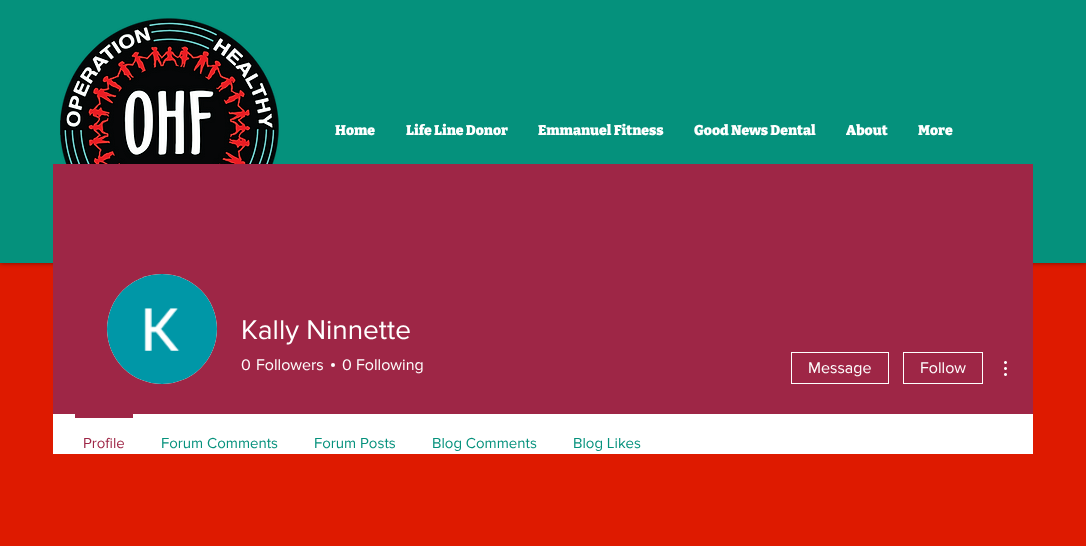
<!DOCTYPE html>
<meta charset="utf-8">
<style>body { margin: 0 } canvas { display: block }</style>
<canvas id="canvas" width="1086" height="546"></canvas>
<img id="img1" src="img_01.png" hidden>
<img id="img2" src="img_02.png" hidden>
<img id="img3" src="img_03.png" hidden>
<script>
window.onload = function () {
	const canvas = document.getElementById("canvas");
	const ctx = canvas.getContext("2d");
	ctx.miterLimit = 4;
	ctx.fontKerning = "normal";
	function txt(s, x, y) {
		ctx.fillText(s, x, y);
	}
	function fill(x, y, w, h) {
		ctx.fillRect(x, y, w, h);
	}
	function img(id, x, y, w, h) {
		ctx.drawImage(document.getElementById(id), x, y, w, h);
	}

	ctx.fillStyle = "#DE1A00";
	fill(0, 0, 1086, 546);
	ctx.fillStyle = "rgba(0, 0, 0, 0.5)";
	ctx.filter = "blur(2.5px)";
	ctx.beginPath();
	ctx.rect(0, 0, 1086, 263);
	ctx.fill();
	ctx.filter = "none";
	ctx.fillStyle = "#05917C";
	fill(0, 0, 1086, 263);
	img("img1", 60, 18, 219, 146);
	ctx.fillStyle = "#9E2646";
	fill(53, 164, 980, 250);
	ctx.fillStyle = "#D8D8D8";
	ctx.beginPath();
	ctx.arc(162, 329, 55, 0, Math.PI * 2);
	ctx.fill();
	img("img2", 107, 274, 110, 110);
	ctx.fillStyle = "#FFFFFF";
	ctx.beginPath();
	ctx.arc(333, 365, 2, 0, Math.PI * 2);
	ctx.fill();
	ctx.strokeStyle = "#FFFFFF";
	ctx.strokeRect(791.5, 352.5, 97, 31);
	ctx.strokeRect(903.5, 352.5, 79, 31);
	img("img3", 1004, 361, 3, 15);
	fill(53, 414, 980, 40);
	ctx.fillStyle = "#9E2646";
	fill(75, 414, 58, 4);
	ctx.font = "900 14px Bitter";
	ctx.fillStyle = "#FFFFFF";
	txt("Home", 335, 135);
	txt("Life Line Donor", 406, 135);
	txt("Emmanuel Fitness", 538, 135);
	txt("Good News Dental", 694, 135);
	txt("About", 846, 135);
	txt("More", 918, 135);
	ctx.font = "28px 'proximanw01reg'";
	txt("Kally Ninnette", 241, 339);
	ctx.font = "16px 'proximanw01reg'";
	txt("0", 241, 370);
	txt("Followers", 256, 370);
	txt("0", 342, 370);
	txt("Following", 356, 370);
	txt("Message", 808, 373);
	txt("Follow", 920, 373);
	ctx.font = "15px 'proximanw01reg'";
	ctx.fillStyle = "#9E2646";
	txt("Profile", 83, 448);
	ctx.fillStyle = "#05917C";
	txt("Forum Comments", 161, 448);
	txt("Forum Posts", 314, 448);
	txt("Blog Comments", 432, 448);
	txt("Blog Likes", 573, 448);
};
</script>
